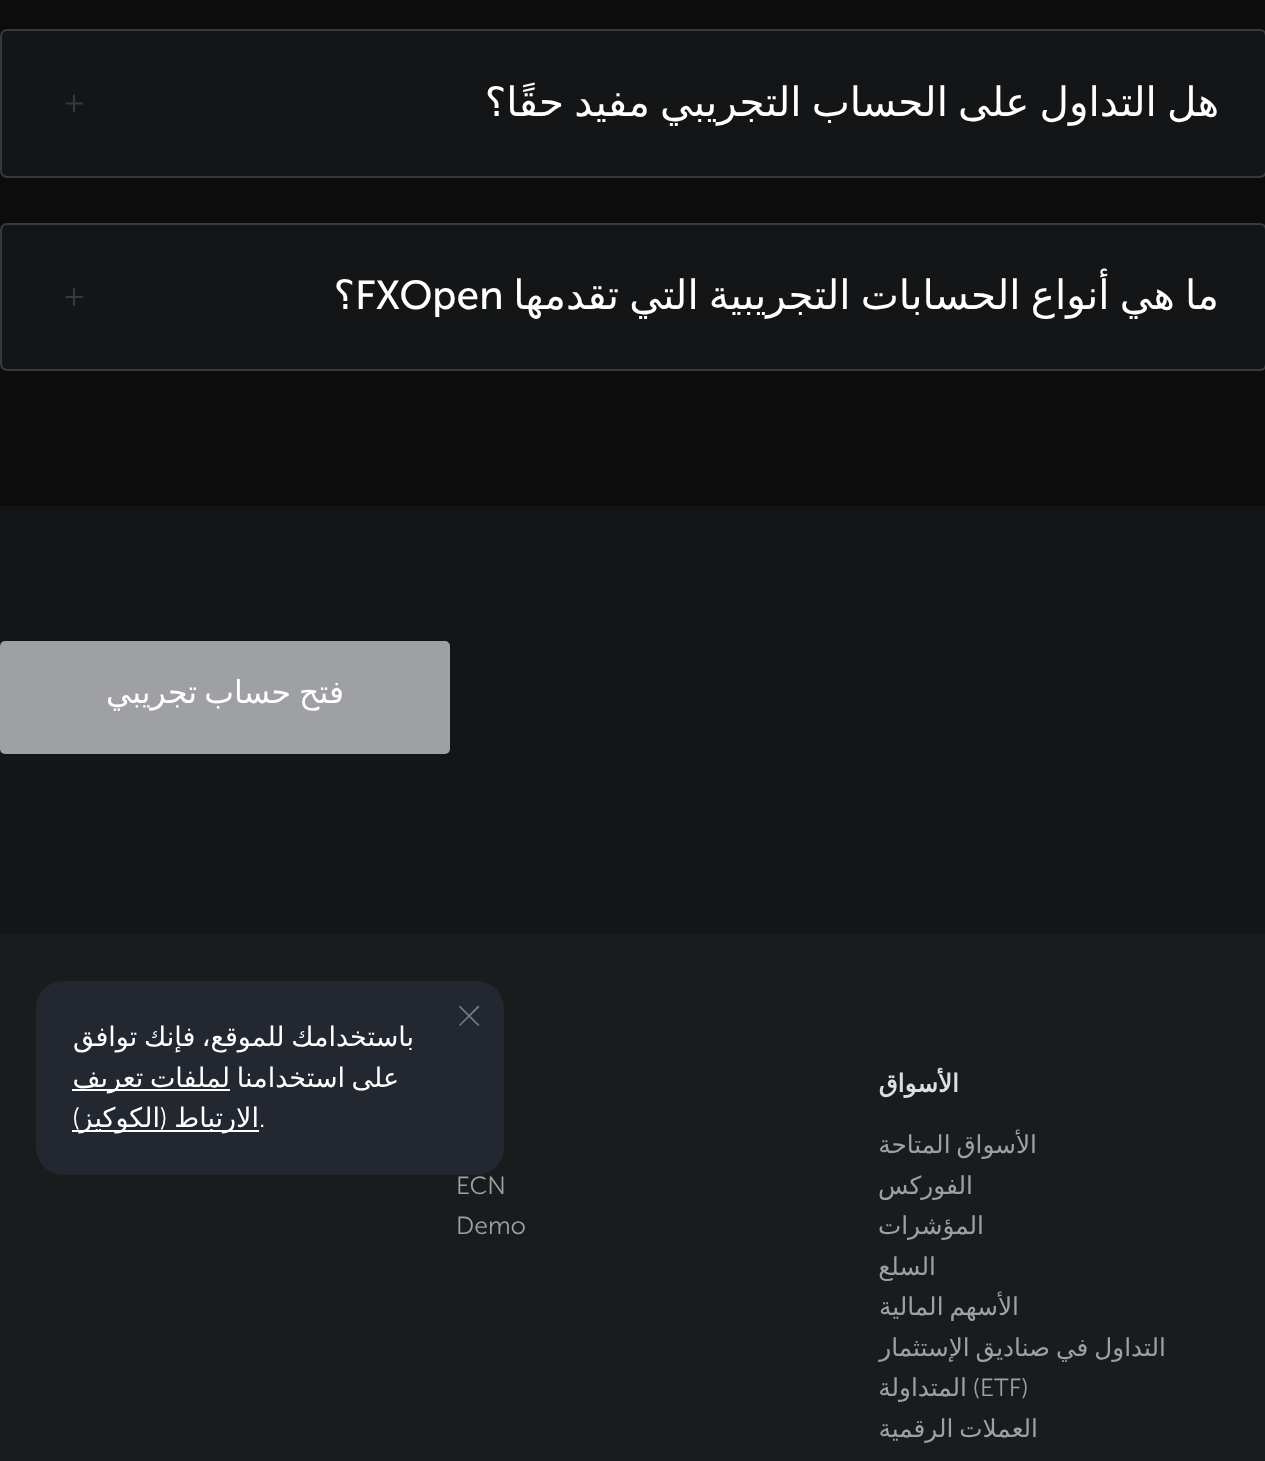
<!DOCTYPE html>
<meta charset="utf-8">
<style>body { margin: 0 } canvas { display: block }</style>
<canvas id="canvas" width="1265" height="1461"></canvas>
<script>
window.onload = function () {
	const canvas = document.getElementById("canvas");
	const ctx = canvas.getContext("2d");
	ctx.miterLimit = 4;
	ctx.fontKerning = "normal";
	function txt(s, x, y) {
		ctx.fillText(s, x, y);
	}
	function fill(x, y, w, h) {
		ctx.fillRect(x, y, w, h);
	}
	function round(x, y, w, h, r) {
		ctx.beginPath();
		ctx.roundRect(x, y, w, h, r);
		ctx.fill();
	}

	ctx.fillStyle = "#141516";
	fill(0, 0, 1265, 1461);
	ctx.fillStyle = "#0C0C0D";
	fill(0, 0, 1265, 506);
	ctx.fillStyle = "#141516";
	ctx.beginPath();
	ctx.roundRect(1, 30, 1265, 147, 6);
	ctx.fill();
	ctx.strokeStyle = "#363940";
	ctx.lineWidth = 2;
	ctx.stroke();
	ctx.beginPath();
	ctx.moveTo(66.5, 103.5);
	ctx.lineTo(82, 103.5);
	ctx.moveTo(74, 111.5);
	ctx.lineTo(74, 95.5);
	ctx.lineWidth = 2.2;
	ctx.lineCap = "round";
	ctx.stroke();
	ctx.beginPath();
	ctx.roundRect(1, 224, 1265, 146, 6);
	ctx.fill();
	ctx.lineWidth = 2;
	ctx.stroke();
	ctx.beginPath();
	ctx.moveTo(66.5, 297);
	ctx.lineTo(82, 297);
	ctx.moveTo(74, 305);
	ctx.lineTo(74, 289);
	ctx.lineWidth = 2.2;
	ctx.stroke();
	ctx.fillStyle = "#9EA0A4";
	round(0, 641, 450, 113, 5);
	ctx.fillStyle = "#191B1C";
	fill(0, 934, 1265, 527);
	ctx.fillStyle = "#222730";
	round(36, 981, 468, 194, 27);
	ctx.fillStyle = "#737780";
	ctx.beginPath();
	ctx.moveTo(459, 1007);
	ctx.lineTo(460, 1005.5);
	ctx.lineTo(479.5, 1025);
	ctx.lineTo(478, 1026);
	ctx.closePath();
	ctx.fill();
	ctx.beginPath();
	ctx.moveTo(478, 1005.5);
	ctx.lineTo(479.5, 1007);
	ctx.lineTo(460, 1026);
	ctx.lineTo(459, 1025);
	ctx.closePath();
	ctx.fill();
	ctx.fillStyle = "#FFFFFF";
	fill(72, 1089, 158, 2);
	fill(72, 1130, 187, 2);
	ctx.wordSpacing = "-2.75px";
	ctx.direction = "rtl";
	ctx.font = "40.5px DejaVu Sans";
	txt("هل التداول على الحساب التجريبي مفيد حقًا؟", 1219, 116);
	txt("ما هي أنواع الحسابات التجريبية التي تقدمها", 1219, 309);
	ctx.wordSpacing = "0px";
	ctx.direction = "ltr";
	ctx.font = "40.5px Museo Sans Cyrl";
	txt("FXOpen", 355, 309);
	ctx.direction = "rtl";
	ctx.font = "40.5px DejaVu Sans";
	txt("؟", 355, 309);
	ctx.wordSpacing = "-2px";
	ctx.font = "31.5px DejaVu Sans";
	txt("فتح حساب", 344, 703);
	ctx.wordSpacing = "0px";
	txt("تجريبي", 197, 703);
	ctx.font = "bold 24.75px DejaVu Sans";
	ctx.fillStyle = "#DCDEE0";
	txt("الأسواق", 959, 1092);
	ctx.wordSpacing = "-2px";
	ctx.font = "24.75px DejaVu Sans";
	ctx.fillStyle = "#9EA0A4";
	txt("الأسواق المتاحة", 1037, 1153);
	ctx.wordSpacing = "0px";
	txt("الفوركس", 973, 1194);
	txt("المؤشرات", 984, 1234);
	txt("السلع", 936, 1275);
	ctx.wordSpacing = "-2px";
	txt("الأسهم المالية", 1019, 1315);
	txt("التداول في صناديق الإستثمار", 1166, 1356);
	ctx.wordSpacing = "0px";
	ctx.direction = "ltr";
	ctx.font = "300 24.75px Museo Sans Cyrl";
	txt("(ETF)", 973, 1396);
	ctx.direction = "rtl";
	ctx.font = "24.75px DejaVu Sans";
	txt("المتداولة", 967, 1396);
	ctx.wordSpacing = "-2px";
	txt("العملات الرقمية", 1038, 1437);
	ctx.wordSpacing = "0px";
	ctx.direction = "ltr";
	ctx.font = "300 24.75px Museo Sans Cyrl";
	txt("ECN", 456, 1194);
	txt("Demo", 456, 1234);
	ctx.wordSpacing = "-2px";
	ctx.direction = "rtl";
	ctx.font = "27px DejaVu Sans";
	ctx.fillStyle = "#FFFFFF";
	txt("باستخدامك للموقع، فإنك توافق", 414, 1046);
	ctx.wordSpacing = "0px";
	txt("على", 399, 1087);
	txt("استخدامنا", 345, 1087);
	ctx.wordSpacing = "-2px";
	txt("لملفات تعريف", 230, 1087);
	ctx.wordSpacing = "0px";
	ctx.direction = "ltr";
	ctx.font = "300 27px Museo Sans Cyrl";
	txt(".", 259, 1127);
	ctx.direction = "rtl";
	ctx.font = "27px DejaVu Sans";
	txt("الارتباط", 259, 1127);
	ctx.font = "300 27px Museo Sans Cyrl";
	txt("(", 167, 1127);
	ctx.font = "27px DejaVu Sans";
	txt("الكوكيز", 160, 1127);
	ctx.font = "300 27px Museo Sans Cyrl";
	txt(")", 80, 1127);
};
</script>
